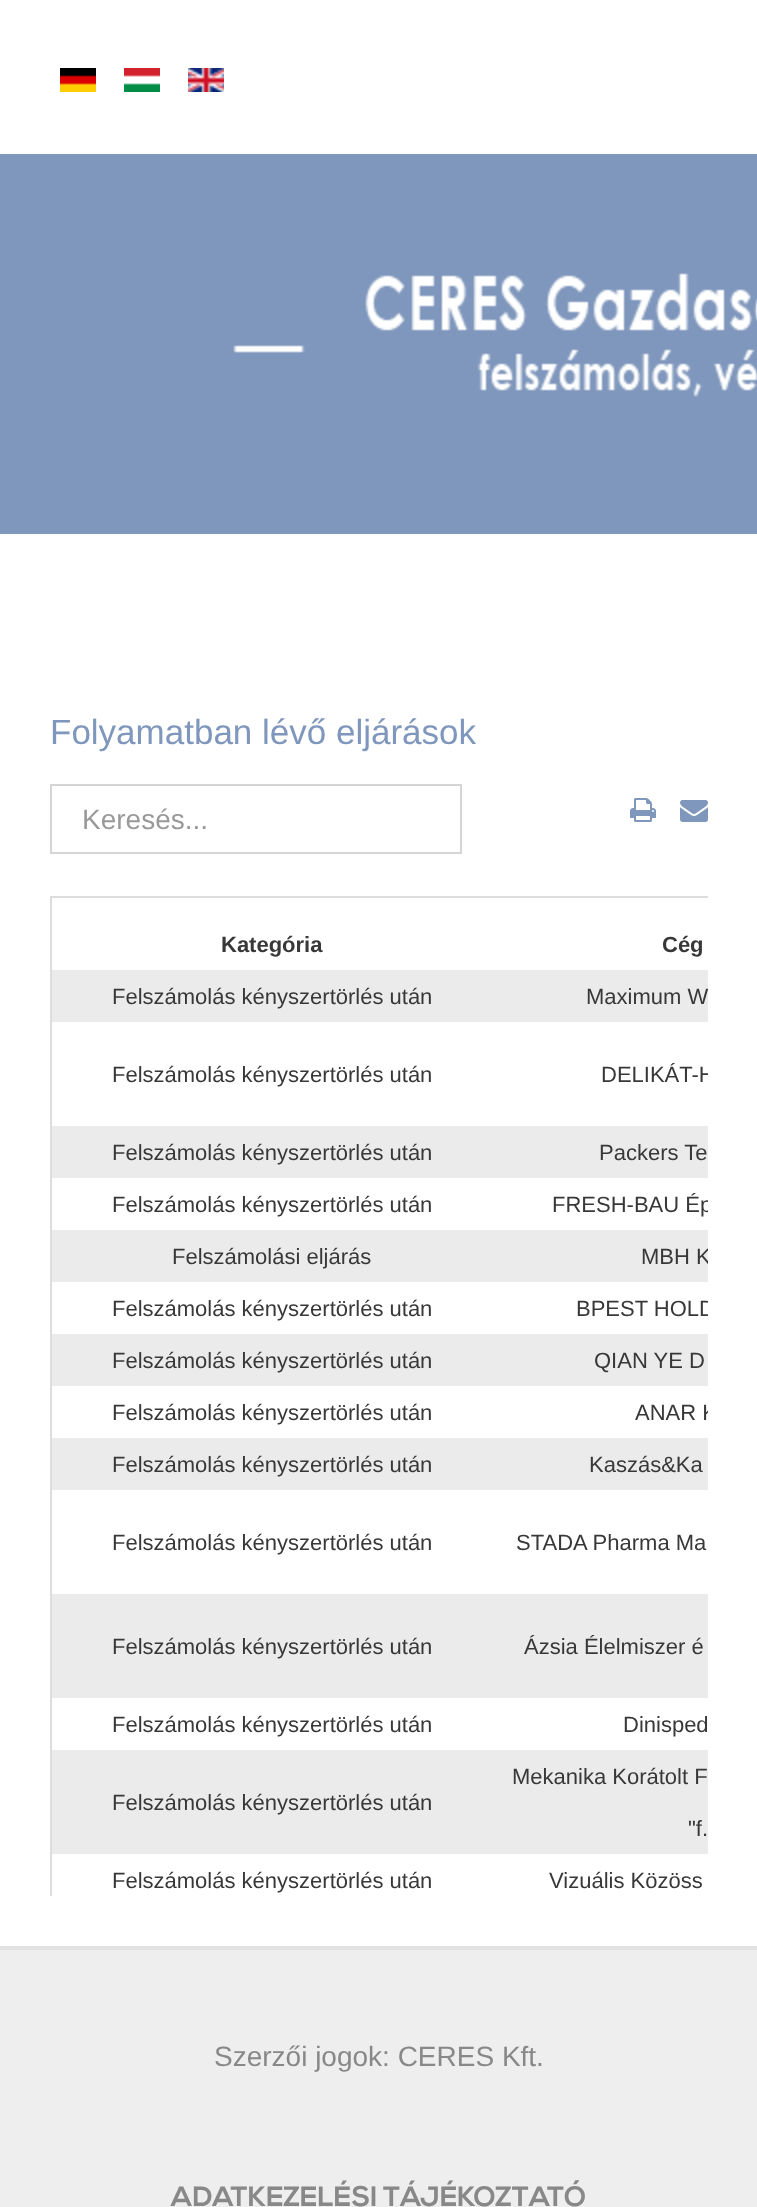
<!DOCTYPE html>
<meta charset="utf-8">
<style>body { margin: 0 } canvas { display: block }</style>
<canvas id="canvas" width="757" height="2207"></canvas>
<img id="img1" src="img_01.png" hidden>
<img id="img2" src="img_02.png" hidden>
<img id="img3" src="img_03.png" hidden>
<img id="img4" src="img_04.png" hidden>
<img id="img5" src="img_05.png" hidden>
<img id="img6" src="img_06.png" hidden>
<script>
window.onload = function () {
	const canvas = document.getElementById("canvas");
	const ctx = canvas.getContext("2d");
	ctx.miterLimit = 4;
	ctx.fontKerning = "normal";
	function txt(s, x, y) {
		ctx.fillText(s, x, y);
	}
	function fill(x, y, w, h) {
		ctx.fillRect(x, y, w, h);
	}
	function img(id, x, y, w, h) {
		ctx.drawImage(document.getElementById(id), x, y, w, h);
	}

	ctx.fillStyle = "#FFFFFF";
	fill(0, 0, 757, 2207);
	img("img1", 60, 68, 36, 24);
	img("img2", 124, 68, 36, 24);
	img("img3", 188, 68, 36, 24);
	ctx.fillStyle = "#7F97BC";
	fill(0, 154, 757, 380);
	img("img4", 233, 273, 524, 124);
	img("img5", 630, 798, 26, 24);
	img("img6", 680, 800, 28, 22);
	ctx.strokeStyle = "#D5D5D5";
	ctx.lineWidth = 2;
	ctx.strokeRect(51, 785, 410, 68);
	ctx.fillStyle = "#DDDDDD";
	fill(50, 896, 658, 2);
	fill(50, 896, 2, 1000);
	ctx.fillStyle = "#EBEBEB";
	fill(52, 970, 656, 52);
	fill(52, 1126, 656, 52);
	fill(52, 1230, 656, 52);
	fill(52, 1334, 656, 52);
	fill(52, 1438, 656, 52);
	fill(52, 1594, 656, 104);
	fill(52, 1750, 656, 104);
	ctx.fillStyle = "#EEEEEE";
	fill(0, 1950, 757, 257);
	ctx.fillStyle = "#E1E1E1";
	fill(0, 1946, 757, 4);
	ctx.font = "35px Liberation Sans";
	ctx.fillStyle = "#7F97BC";
	txt("Folyamatban lévő eljárások", 50, 744);
	ctx.font = "28px Liberation Sans";
	ctx.fillStyle = "#999999";
	txt("Keresés...", 82, 829);
	ctx.font = "bold 22px Liberation Sans";
	ctx.fillStyle = "#383838";
	txt("Kategória", 221, 952);
	txt("Cég", 662, 952);
	ctx.font = "22px Liberation Sans";
	txt("Felszámolás kényszertörlés után", 112, 1004);
	txt("Maximum W", 586, 1004);
	txt("Felszámolás kényszertörlés után", 112, 1082);
	ctx.save();
	ctx.beginPath();
	ctx.rect(50, 896, 658, 1000);
	ctx.clip();
	txt("DELIKÁT-H", 601, 1082);
	ctx.restore();
	txt("Felszámolás kényszertörlés után", 112, 1160);
	txt("Packers Te", 599, 1160);
	txt("Felszámolás kényszertörlés után", 112, 1212);
	ctx.save();
	ctx.beginPath();
	ctx.rect(50, 896, 658, 1000);
	ctx.clip();
	txt("FRESH-BAU Ép", 552, 1212);
	ctx.restore();
	txt("Felszámolási eljárás", 172, 1264);
	ctx.save();
	ctx.beginPath();
	ctx.rect(50, 896, 658, 1000);
	ctx.clip();
	txt("MBH K", 641, 1264);
	ctx.restore();
	txt("Felszámolás kényszertörlés után", 112, 1316);
	ctx.save();
	ctx.beginPath();
	ctx.rect(50, 896, 658, 1000);
	ctx.clip();
	txt("BPEST HOLD", 576, 1316);
	ctx.restore();
	txt("Felszámolás kényszertörlés után", 112, 1368);
	txt("QIAN YE D", 594, 1368);
	txt("Felszámolás kényszertörlés után", 112, 1420);
	ctx.save();
	ctx.beginPath();
	ctx.rect(50, 896, 658, 1000);
	ctx.clip();
	txt("ANAR K", 635, 1420);
	ctx.restore();
	txt("Felszámolás kényszertörlés után", 112, 1472);
	txt("Kaszás&Ka", 589, 1472);
	txt("Felszámolás kényszertörlés után", 112, 1550);
	txt("STADA Pharma Ma", 516, 1550);
	txt("Felszámolás kényszertörlés után", 112, 1654);
	txt("Ázsia Élelmiszer é", 524, 1654);
	txt("Felszámolás kényszertörlés után", 112, 1732);
	txt("Dinisped", 623, 1732);
	txt("Felszámolás kényszertörlés után", 112, 1810);
	txt("Mekanika Korátolt F", 512, 1784);
	txt("\"f.", 688, 1836);
	txt("Felszámolás kényszertörlés után", 112, 1888);
	txt("Vizuális Közöss", 549, 1888);
	ctx.font = "28px Liberation Sans";
	ctx.fillStyle = "#888888";
	txt("Szerzői jogok: CERES Kft.", 214, 2066);
	ctx.font = "bold 28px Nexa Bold";
	txt("ADATKEZELÉSI TÁJÉKOZTATÓ", 171, 2206);
};
</script>
